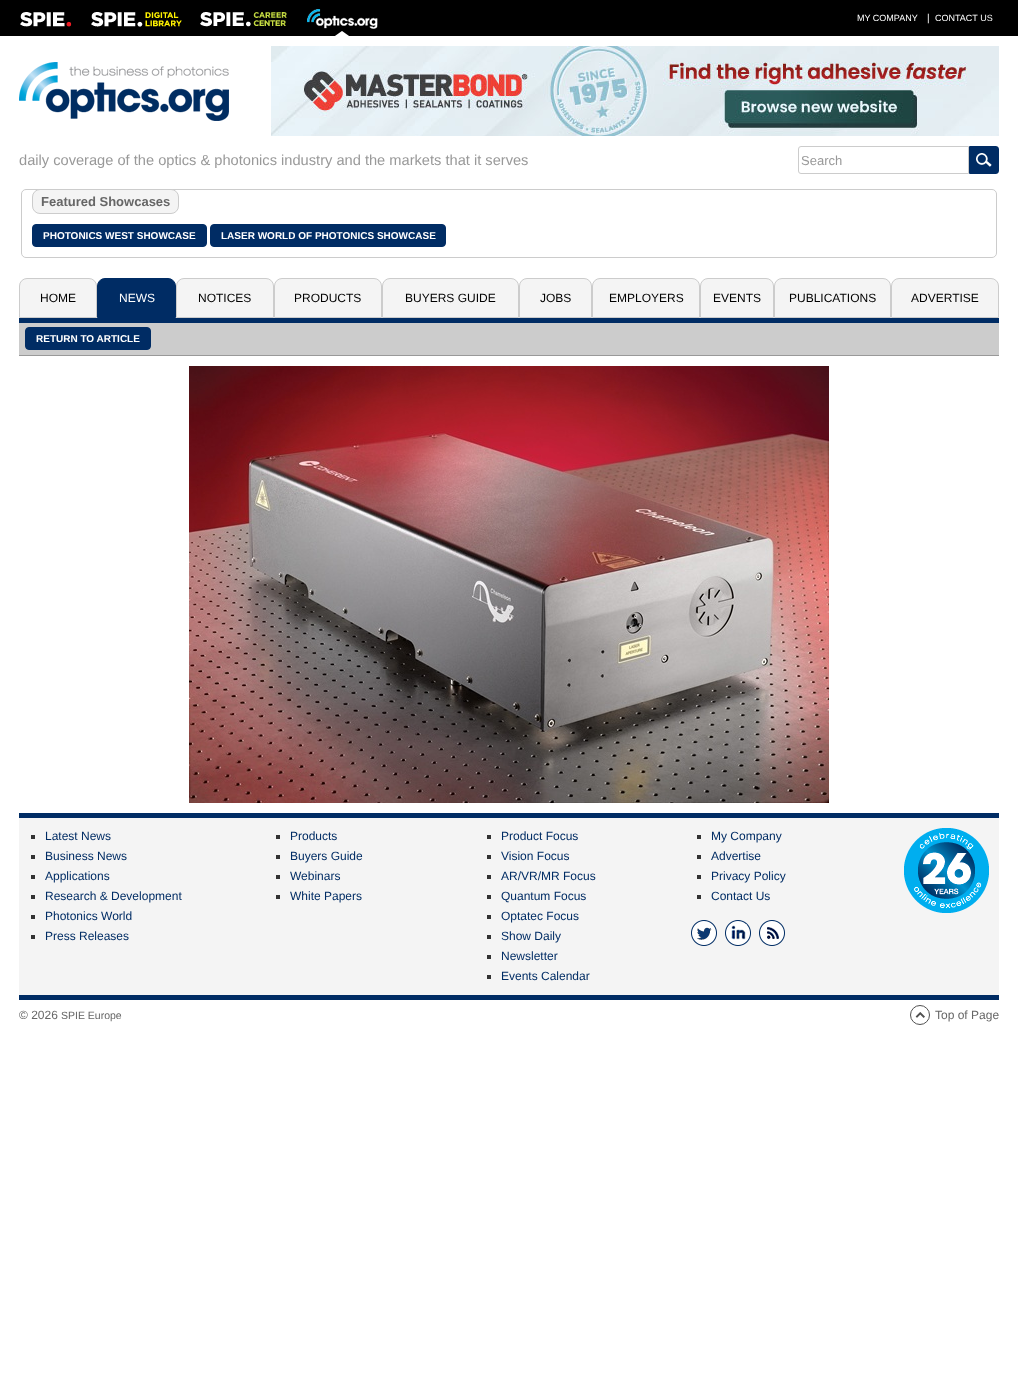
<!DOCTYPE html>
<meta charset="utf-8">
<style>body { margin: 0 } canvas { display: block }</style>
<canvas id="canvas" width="1018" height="1391"></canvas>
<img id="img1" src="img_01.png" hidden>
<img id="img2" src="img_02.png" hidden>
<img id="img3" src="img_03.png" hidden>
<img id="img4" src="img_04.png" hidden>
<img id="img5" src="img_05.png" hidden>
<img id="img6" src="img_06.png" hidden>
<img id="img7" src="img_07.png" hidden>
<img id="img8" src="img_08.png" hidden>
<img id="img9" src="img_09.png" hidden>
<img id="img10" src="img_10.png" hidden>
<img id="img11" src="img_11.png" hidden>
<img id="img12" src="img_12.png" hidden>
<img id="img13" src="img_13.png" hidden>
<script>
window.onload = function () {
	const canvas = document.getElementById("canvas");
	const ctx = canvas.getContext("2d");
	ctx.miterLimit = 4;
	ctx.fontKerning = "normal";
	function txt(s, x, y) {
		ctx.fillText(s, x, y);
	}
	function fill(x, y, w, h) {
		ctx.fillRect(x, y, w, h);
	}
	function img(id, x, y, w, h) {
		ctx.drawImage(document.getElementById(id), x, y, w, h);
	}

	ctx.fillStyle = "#FFFFFF";
	fill(0, 0, 1018, 1391);
	ctx.fillStyle = "#000000";
	fill(0, 0, 1018, 36);
	img("img1", 20, 12, 52, 15);
	img("img2", 91, 12, 91, 15);
	img("img3", 200, 12, 87, 15);
	img("img4", 307, 9, 71, 27);
	img("img5", 19, 62, 210, 59);
	img("img6", 271, 46, 728, 90);
	ctx.beginPath();
	ctx.roundRect(798.5, 146.5, 170, 27, [2.5, 0, 0, 2.5]);
	ctx.strokeStyle = "#CCCCCC";
	ctx.stroke();
	ctx.beginPath();
	ctx.roundRect(969.5, 146.5, 29, 27, [0, 2.5, 2.5, 0]);
	ctx.strokeStyle = "#002C64";
	ctx.stroke();
	ctx.fillStyle = "#002C64";
	fill(970, 147, 28, 26);
	img("img7", 976, 153, 16, 14);
	ctx.beginPath();
	ctx.roundRect(21.5, 189.5, 975, 68, 4.5);
	ctx.strokeStyle = "#CCCCCC";
	ctx.stroke();
	ctx.fillStyle = "#F4F4F4";
	ctx.beginPath();
	ctx.roundRect(32.5, 189.5, 146, 24, 7.5);
	ctx.fill();
	ctx.stroke();
	ctx.fillStyle = "#002C64";
	ctx.beginPath();
	ctx.roundRect(32.5, 224.5, 174, 22, 3.5);
	ctx.fill();
	ctx.strokeStyle = "#002C64";
	ctx.stroke();
	ctx.beginPath();
	ctx.roundRect(210.5, 224.5, 235, 22, 3.5);
	ctx.fill();
	ctx.stroke();
	fill(19, 318, 980, 5);
	ctx.fillStyle = "#F4F4F4";
	ctx.beginPath();
	ctx.roundRect(19.5, 278.5, 77, 39, [7.5, 7.5, 0, 0]);
	ctx.fill();
	ctx.strokeStyle = "#CCCCCC";
	ctx.stroke();
	ctx.fillStyle = "#002C64";
	ctx.beginPath();
	ctx.roundRect(97.5, 278.5, 78, 39, [7.5, 7.5, 0, 0]);
	ctx.fill();
	ctx.strokeStyle = "#002C64";
	ctx.stroke();
	ctx.fillStyle = "#F4F4F4";
	ctx.beginPath();
	ctx.roundRect(176.5, 278.5, 97, 39, [7.5, 7.5, 0, 0]);
	ctx.fill();
	ctx.strokeStyle = "#CCCCCC";
	ctx.stroke();
	ctx.beginPath();
	ctx.roundRect(274.5, 278.5, 107, 39, [7.5, 7.5, 0, 0]);
	ctx.fill();
	ctx.stroke();
	ctx.beginPath();
	ctx.roundRect(382.5, 278.5, 136, 39, [7.5, 7.5, 0, 0]);
	ctx.fill();
	ctx.stroke();
	ctx.beginPath();
	ctx.roundRect(519.5, 278.5, 72, 39, [7.5, 7.5, 0, 0]);
	ctx.fill();
	ctx.stroke();
	ctx.beginPath();
	ctx.roundRect(592.5, 278.5, 107, 39, [7.5, 7.5, 0, 0]);
	ctx.fill();
	ctx.stroke();
	ctx.beginPath();
	ctx.roundRect(700.5, 278.5, 73, 39, [7.5, 7.5, 0, 0]);
	ctx.fill();
	ctx.stroke();
	ctx.beginPath();
	ctx.roundRect(774.5, 278.5, 116, 39, [7.5, 7.5, 0, 0]);
	ctx.fill();
	ctx.stroke();
	ctx.beginPath();
	ctx.roundRect(891.5, 278.5, 107, 39, [7.5, 7.5, 0, 0]);
	ctx.fill();
	ctx.stroke();
	ctx.fillStyle = "#CCCCCC";
	fill(19, 323, 980, 32);
	ctx.fillStyle = "#999999";
	fill(19, 355, 980, 1);
	ctx.fillStyle = "#002C64";
	ctx.beginPath();
	ctx.roundRect(25.5, 327.5, 125, 22, 3.5);
	ctx.fill();
	ctx.strokeStyle = "#002C64";
	ctx.stroke();
	img("img8", 189, 366, 640, 437);
	ctx.fillStyle = "#F4F4F4";
	fill(19, 818, 980, 177);
	ctx.fillStyle = "#002C64";
	fill(19, 813, 980, 5);
	fill(19, 995, 980, 5);
	ctx.fillStyle = "#333333";
	fill(31, 835, 4, 4);
	fill(31, 855, 4, 4);
	fill(31, 875, 4, 4);
	fill(31, 895, 4, 4);
	fill(31, 915, 4, 4);
	fill(31, 935, 4, 4);
	fill(276, 835, 4, 4);
	fill(276, 855, 4, 4);
	fill(276, 875, 4, 4);
	fill(276, 895, 4, 4);
	fill(487, 835, 4, 4);
	fill(487, 855, 4, 4);
	fill(487, 875, 4, 4);
	fill(487, 895, 4, 4);
	fill(487, 915, 4, 4);
	fill(487, 935, 4, 4);
	fill(487, 955, 4, 4);
	fill(487, 975, 4, 4);
	fill(697, 835, 4, 4);
	fill(697, 855, 4, 4);
	fill(697, 875, 4, 4);
	fill(697, 895, 4, 4);
	img("img9", 691, 920, 26, 26);
	img("img10", 725, 920, 26, 26);
	img("img11", 759, 920, 26, 26);
	img("img12", 904, 828, 85, 85);
	img("img13", 910, 1005, 20, 20);
	ctx.font = "9px Liberation Sans";
	ctx.fillStyle = "#FFFFFF";
	txt("MY COMPANY", 857, 21);
	ctx.font = "10px Liberation Sans";
	txt("|", 927, 21);
	ctx.font = "9px Liberation Sans";
	txt("CONTACT US", 935, 21);
	ctx.font = "14.65px Liberation Sans";
	ctx.fillStyle = "#999999";
	txt("daily coverage of the optics & photonics industry and the markets that it serves", 19, 165);
	ctx.font = "13px Liberation Sans";
	txt("Search", 801, 165);
	ctx.font = "bold 13px Liberation Sans";
	ctx.fillStyle = "#666666";
	txt("Featured Showcases", 41, 206);
	ctx.font = "bold 10px Liberation Sans";
	ctx.fillStyle = "#FFFFFF";
	txt("PHOTONICS WEST SHOWCASE", 43, 239);
	txt("LASER WORLD OF PHOTONICS SHOWCASE", 221, 239);
	ctx.font = "12px Liberation Sans";
	ctx.fillStyle = "#000000";
	txt("HOME", 40, 302);
	ctx.fillStyle = "#FFFFFF";
	txt("NEWS", 119, 302);
	ctx.fillStyle = "#000000";
	txt("NOTICES", 198, 302);
	txt("PRODUCTS", 294, 302);
	txt("BUYERS GUIDE", 405, 302);
	txt("JOBS", 540, 302);
	txt("EMPLOYERS", 609, 302);
	txt("EVENTS", 713, 302);
	txt("PUBLICATIONS", 789, 302);
	txt("ADVERTISE", 911, 302);
	ctx.font = "bold 10px Liberation Sans";
	ctx.fillStyle = "#FFFFFF";
	txt("RETURN TO ARTICLE", 36, 342);
	ctx.font = "12px Liberation Sans";
	ctx.fillStyle = "#002C64";
	txt("Latest News", 45, 840);
	txt("Business News", 45, 860);
	txt("Applications", 45, 880);
	txt("Research & Development", 45, 900);
	txt("Photonics World", 45, 920);
	txt("Press Releases", 45, 940);
	txt("Products", 290, 840);
	txt("Buyers Guide", 290, 860);
	txt("Webinars", 290, 880);
	txt("White Papers", 290, 900);
	txt("Product Focus", 501, 840);
	txt("Vision Focus", 501, 860);
	txt("AR/VR/MR Focus", 501, 880);
	txt("Quantum Focus", 501, 900);
	txt("Optatec Focus", 501, 920);
	txt("Show Daily", 501, 940);
	txt("Newsletter", 501, 960);
	txt("Events Calendar", 501, 980);
	txt("My Company", 711, 840);
	txt("Advertise", 711, 860);
	txt("Privacy Policy", 711, 880);
	txt("Contact Us", 711, 900);
	ctx.fillStyle = "#666666";
	txt("© 2026", 19, 1019);
	ctx.font = "10.5px Liberation Sans";
	txt("SPIE Europe", 61, 1019);
	ctx.font = "12px Liberation Sans";
	txt("Top of Page", 935, 1019);
};
</script>
